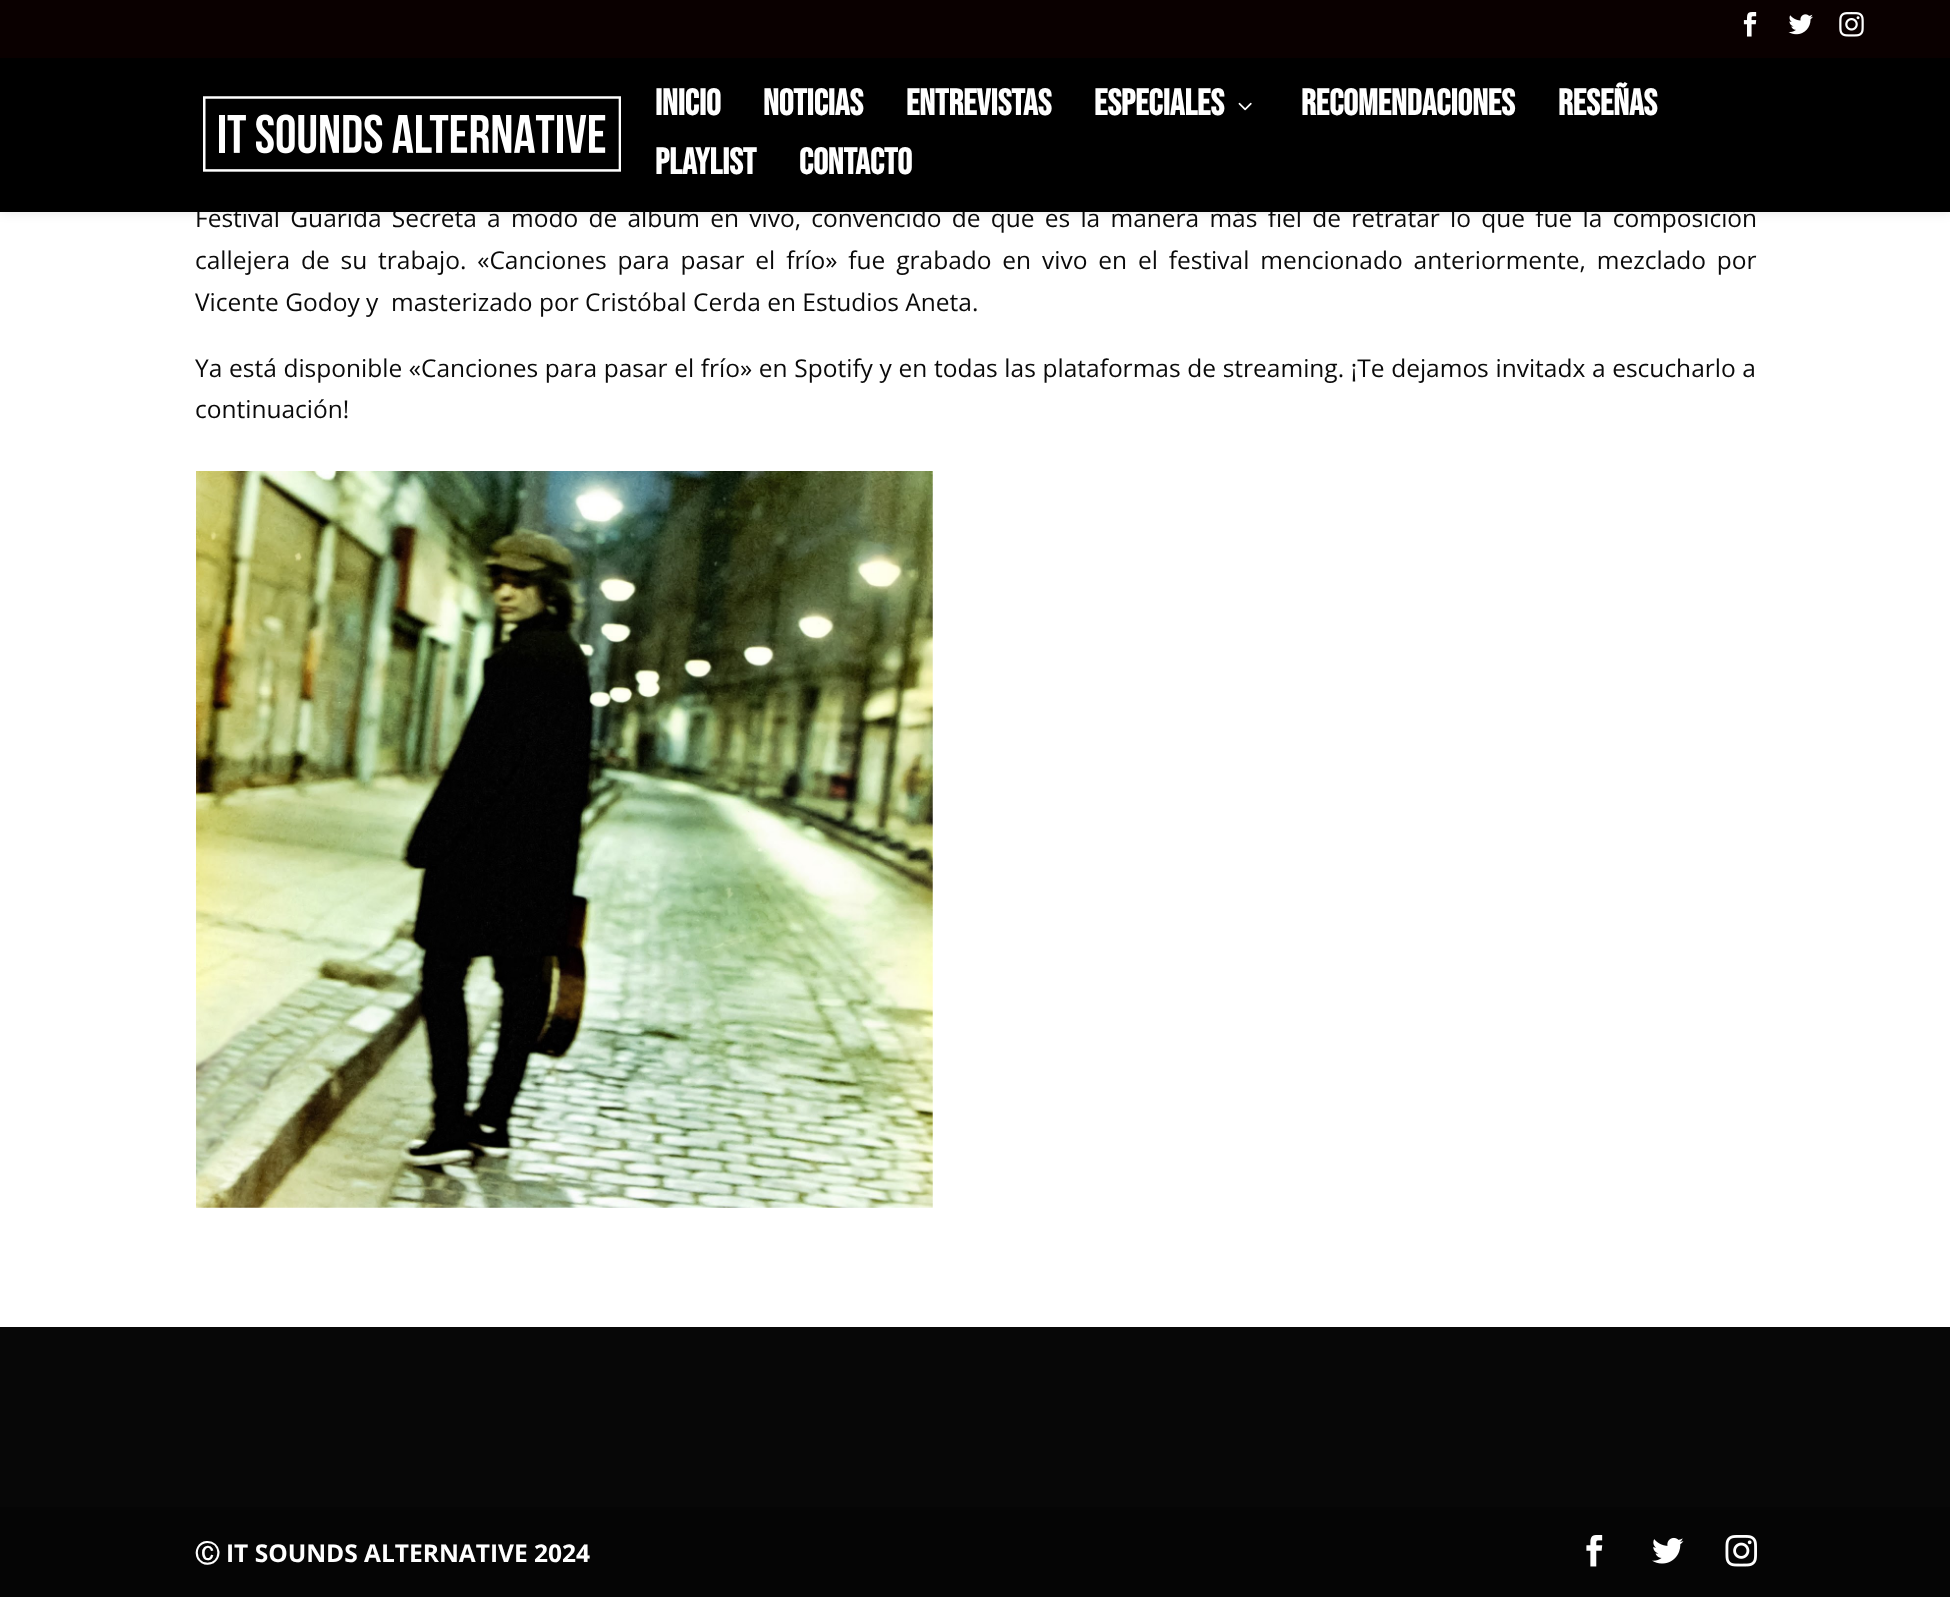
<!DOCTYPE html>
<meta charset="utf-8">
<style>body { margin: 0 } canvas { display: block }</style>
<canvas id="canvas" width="1950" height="1597"></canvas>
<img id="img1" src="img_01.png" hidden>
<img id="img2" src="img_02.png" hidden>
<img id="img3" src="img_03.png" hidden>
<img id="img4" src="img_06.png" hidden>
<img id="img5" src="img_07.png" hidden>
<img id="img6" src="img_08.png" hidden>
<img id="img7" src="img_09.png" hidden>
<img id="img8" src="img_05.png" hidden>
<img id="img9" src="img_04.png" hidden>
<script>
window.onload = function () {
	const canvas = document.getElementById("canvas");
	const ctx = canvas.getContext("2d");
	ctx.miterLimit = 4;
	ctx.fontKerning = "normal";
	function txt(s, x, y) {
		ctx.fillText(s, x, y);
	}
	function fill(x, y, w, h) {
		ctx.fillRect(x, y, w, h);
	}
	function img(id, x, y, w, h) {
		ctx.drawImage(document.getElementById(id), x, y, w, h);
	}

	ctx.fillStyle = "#FFFFFF";
	fill(0, 0, 1950, 1597);
	ctx.fillStyle = "rgba(0, 0, 0, 0.1)";
	ctx.filter = "blur(6px)";
	ctx.beginPath();
	ctx.rect(0, 58, 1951, 154);
	ctx.fill();
	ctx.filter = "none";
	ctx.fillStyle = "#0A0000";
	fill(0, 0, 1950, 58);
	img("img1", 1743, 12, 14, 25);
	img("img2", 1788, 14, 25, 21);
	img("img3", 1839, 12, 25, 25);
	img("img4", 196, 471, 737, 737);
	ctx.fillStyle = "#070707";
	fill(0, 1327, 1950, 180);
	ctx.fillStyle = "#050505";
	fill(0, 1507, 1950, 90);
	img("img5", 1586, 1535, 17, 32);
	img("img6", 1652, 1537, 32, 27);
	img("img7", 1725, 1535, 32, 32);
	ctx.wordSpacing = "3.9px";
	ctx.font = "24.5px Open Sans";
	ctx.fillStyle = "#0A0A0A";
	txt("Festival Guarida Secreta a modo de álbum en vivo, convencido de que es la manera más fiel de retratar lo que fue la composición", 195, 227);
	ctx.fillStyle = "#000000";
	fill(0, 58, 1950, 154);
	ctx.wordSpacing = "0px";
	ctx.font = "bold 36.75px Bebas Neue";
	ctx.fillStyle = "#FFFFFF";
	txt("CONTACTO", 799, 174);
	txt("PLAYLIST", 655, 174);
	txt("RESEÑAS", 1558, 115);
	txt("RECOMENDACIONES", 1301, 115);
	img("img8", 1238, 102, 14, 9);
	txt("ESPECIALES", 1094, 115);
	txt("ENTREVISTAS", 906, 115);
	txt("NOTICIAS", 763, 115);
	txt("INICIO", 655, 115);
	img("img9", 203, 96, 418, 76);
	ctx.wordSpacing = "4.5px";
	ctx.font = "24.5px Open Sans";
	ctx.fillStyle = "#0A0A0A";
	txt("callejera de su trabajo. «Canciones para pasar el frío» fue grabado en vivo en el festival mencionado anteriormente, mezclado por", 195, 269);
	ctx.wordSpacing = "0px";
	txt("Vicente Godoy y  masterizado por Cristóbal Cerda en Estudios Aneta.", 195, 311);
	ctx.wordSpacing = "0.3px";
	txt("Ya está disponible «Canciones para pasar el frío» en Spotify y en todas las plataformas de streaming. ¡Te dejamos invitadx a escucharlo a", 195, 377);
	ctx.wordSpacing = "0px";
	txt("continuación!", 195, 418);
	ctx.font = "bold 24.5px WenQuanYi Zen Hei";
	ctx.fillStyle = "#FFFFFF";
	txt("Ⓒ", 195, 1562);
	ctx.font = "bold 24.5px Open Sans";
	txt("IT SOUNDS ALTERNATIVE 2024", 226, 1562);
};
</script>
